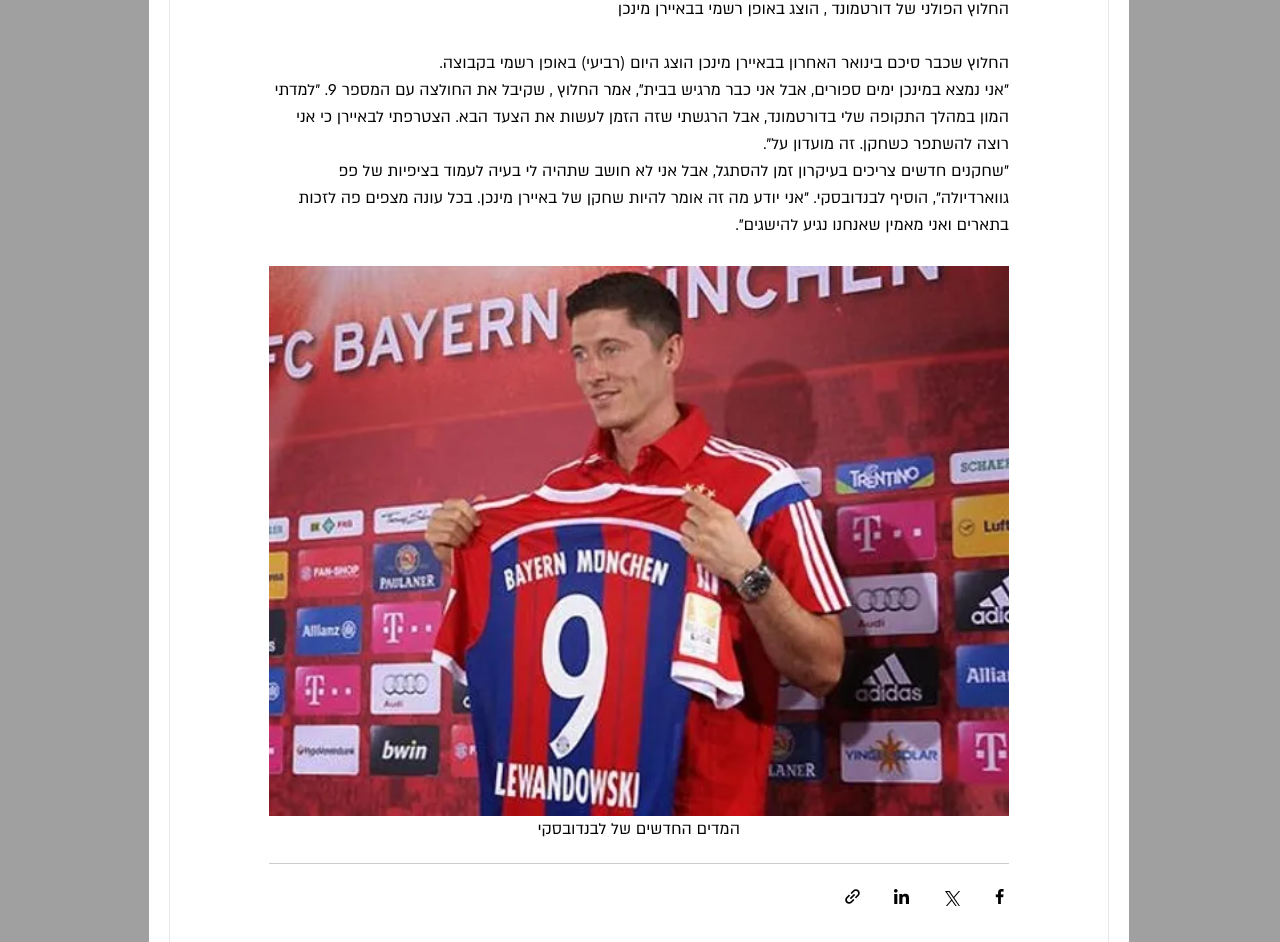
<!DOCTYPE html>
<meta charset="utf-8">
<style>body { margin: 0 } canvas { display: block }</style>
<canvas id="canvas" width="1280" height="942"></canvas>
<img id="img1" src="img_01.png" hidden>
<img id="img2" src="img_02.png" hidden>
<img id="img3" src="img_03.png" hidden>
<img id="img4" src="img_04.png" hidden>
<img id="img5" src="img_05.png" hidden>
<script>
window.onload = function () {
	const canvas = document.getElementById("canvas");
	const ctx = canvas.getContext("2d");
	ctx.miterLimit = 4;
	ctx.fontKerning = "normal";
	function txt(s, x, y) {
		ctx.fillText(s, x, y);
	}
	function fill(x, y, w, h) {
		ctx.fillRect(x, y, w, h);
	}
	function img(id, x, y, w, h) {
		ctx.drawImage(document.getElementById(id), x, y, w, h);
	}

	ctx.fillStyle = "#A0A0A0";
	fill(0, 0, 1280, 942);
	ctx.fillStyle = "#FFFFFF";
	fill(149, 0, 980, 942);
	ctx.strokeStyle = "#E6E6E6";
	ctx.strokeRect(169.5, -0.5, 939, 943);
	img("img1", 269, 266, 740, 550);
	ctx.fillStyle = "#CCCCCC";
	fill(269, 863, 740, 1);
	img("img2", 995, 889, 9, 15);
	img("img3", 945, 891, 15, 15);
	img("img4", 894, 889, 15, 15);
	img("img5", 845, 889, 15, 15);
	ctx.direction = "rtl";
	ctx.font = "18px 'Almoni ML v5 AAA'";
	ctx.fillStyle = "#000000";
	txt("החלוץ הפולני של דורטמונד , הוצג באופן רשמי בבאיירן מינכן", 1009, 14);
	txt("החלוץ שכבר סיכם בינואר האחרון בבאיירן מינכן הוצג היום (רביעי) באופן רשמי בקבוצה.", 1009, 68);
	txt("\"אני נמצא במינכן ימים ספורים, אבל אני כבר מרגיש בבית\", אמר החלוץ , שקיבל את החולצה עם המספר", 1009, 95);
	ctx.direction = "ltr";
	txt("9", 328, 95);
	ctx.direction = "rtl";
	txt(". \"למדתי", 328, 95);
	txt("המון במהלך התקופה שלי בדורטמונד, אבל הרגשתי שזה הזמן לעשות את הצעד הבא. הצטרפתי לבאיירן כי אני", 1009, 122);
	txt("רוצה להשתפר כשחקן. זה מועדון על\".", 1009, 149);
	txt("\"שחקנים חדשים צריכים בעיקרון זמן להסתגל, אבל אני לא חושב שתהיה לי בעיה לעמוד בציפיות של פפ", 1009, 176);
	txt("גווארדיולה\", הוסיף לבנדובסקי. \"אני יודע מה זה אומר להיות שחקן של באיירן מינכן. בכל עונה מצפים פה לזכות", 1009, 203);
	txt("בתארים ואני מאמין שאנחנו נגיע להישגים\".", 1009, 230);
	txt("המדים החדשים של לבנדובסקי", 740, 834);
};
</script>
